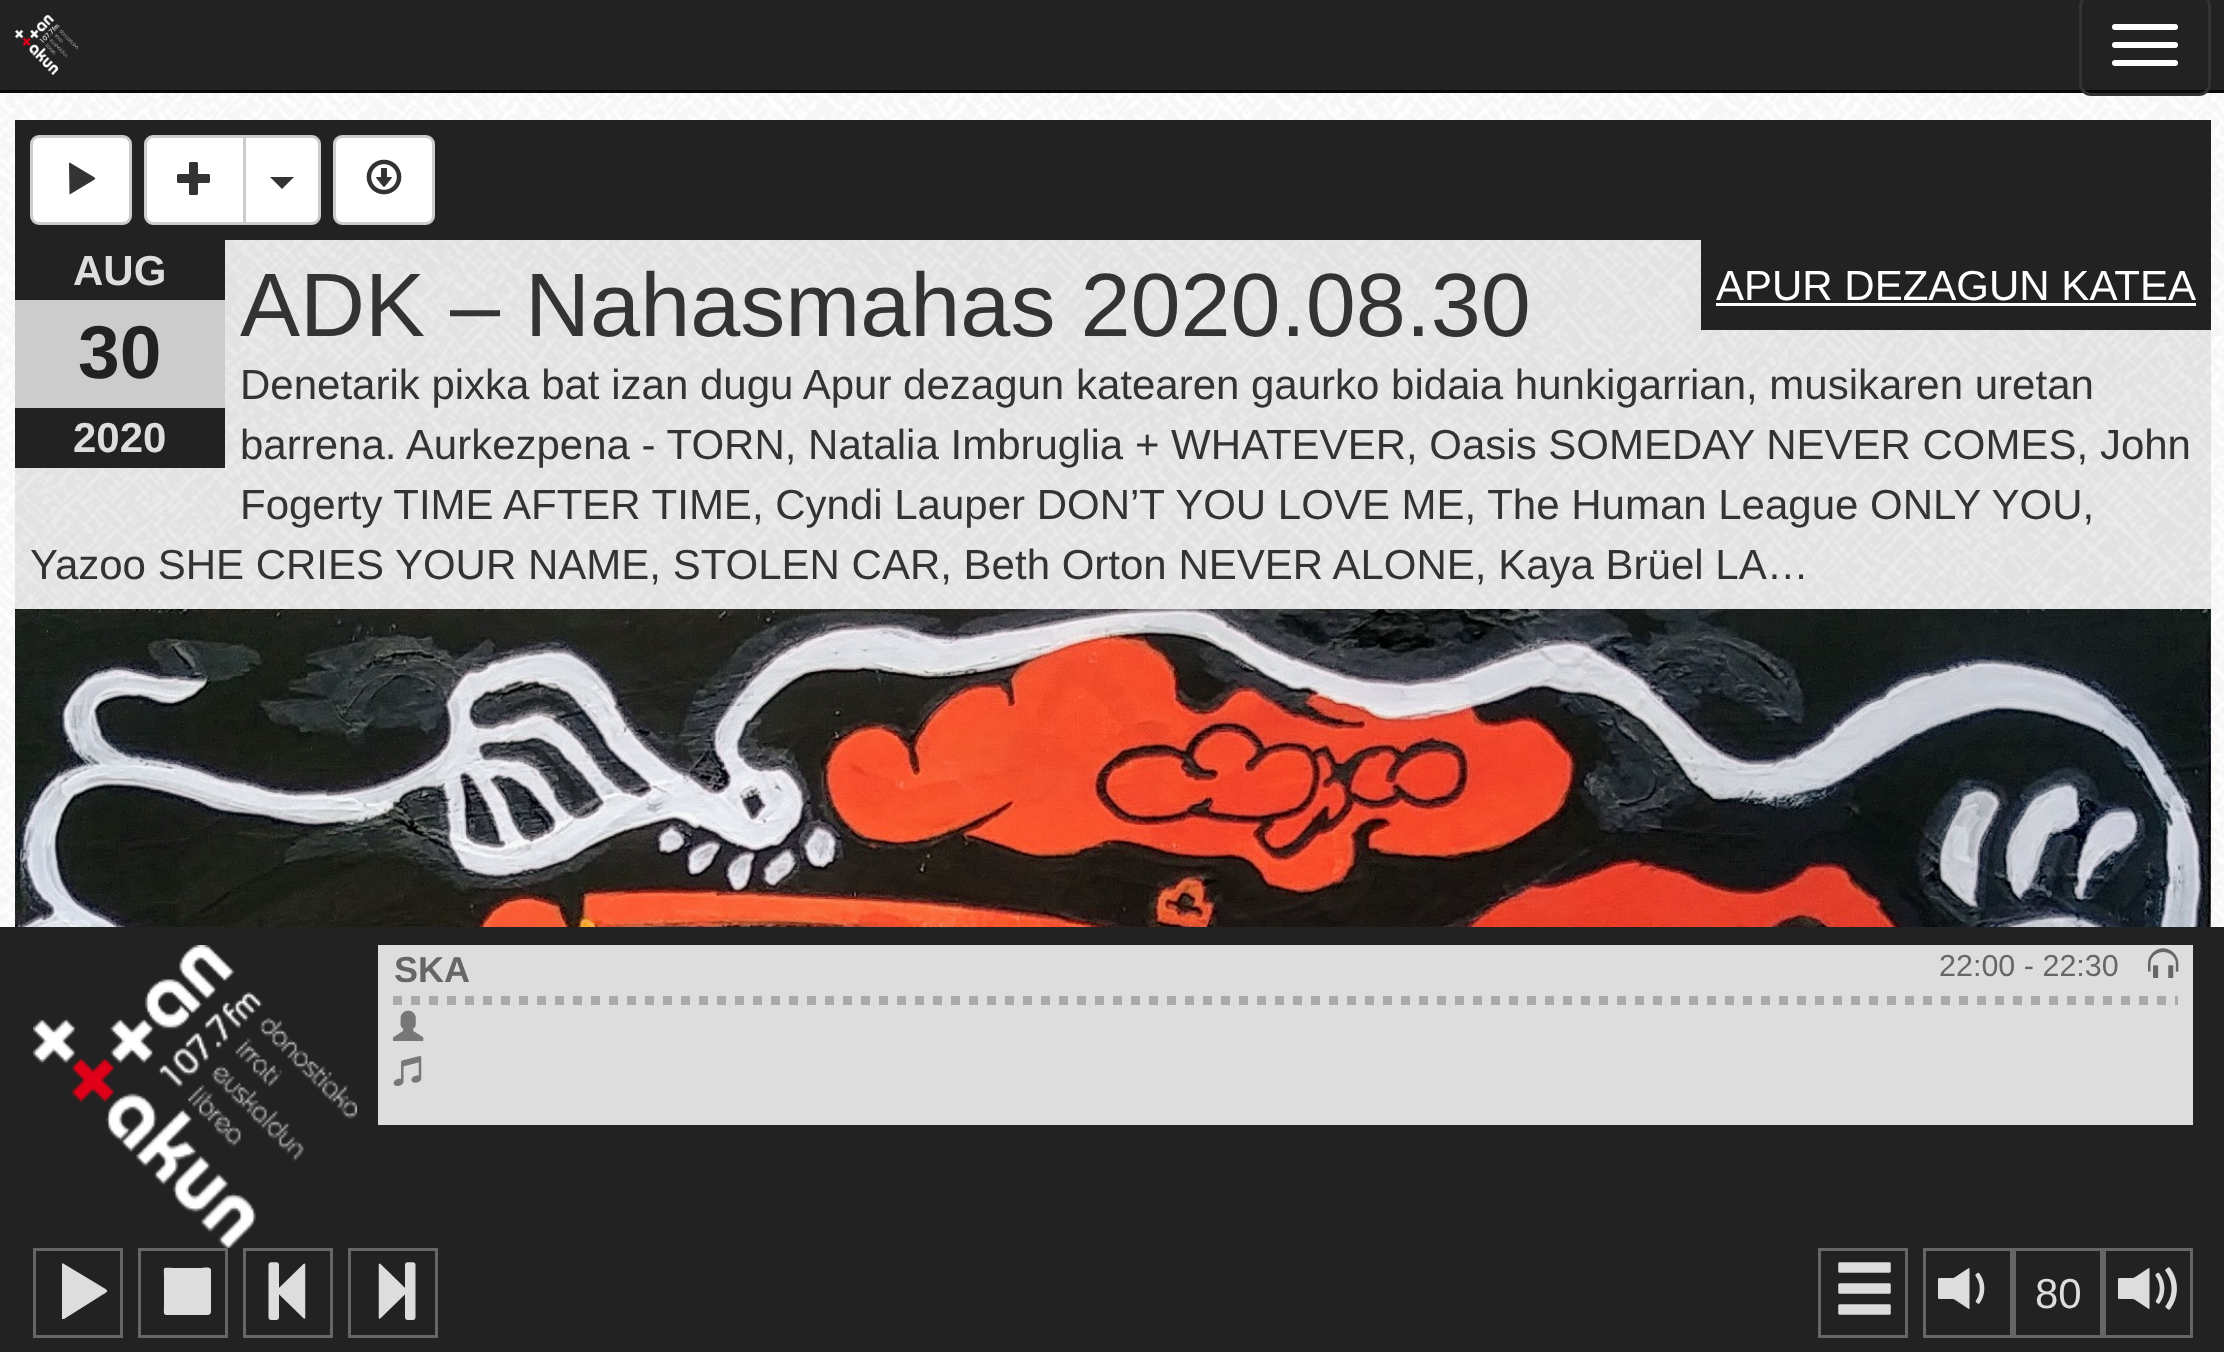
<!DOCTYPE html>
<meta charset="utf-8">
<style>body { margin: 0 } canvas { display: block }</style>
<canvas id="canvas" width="2224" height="1352"></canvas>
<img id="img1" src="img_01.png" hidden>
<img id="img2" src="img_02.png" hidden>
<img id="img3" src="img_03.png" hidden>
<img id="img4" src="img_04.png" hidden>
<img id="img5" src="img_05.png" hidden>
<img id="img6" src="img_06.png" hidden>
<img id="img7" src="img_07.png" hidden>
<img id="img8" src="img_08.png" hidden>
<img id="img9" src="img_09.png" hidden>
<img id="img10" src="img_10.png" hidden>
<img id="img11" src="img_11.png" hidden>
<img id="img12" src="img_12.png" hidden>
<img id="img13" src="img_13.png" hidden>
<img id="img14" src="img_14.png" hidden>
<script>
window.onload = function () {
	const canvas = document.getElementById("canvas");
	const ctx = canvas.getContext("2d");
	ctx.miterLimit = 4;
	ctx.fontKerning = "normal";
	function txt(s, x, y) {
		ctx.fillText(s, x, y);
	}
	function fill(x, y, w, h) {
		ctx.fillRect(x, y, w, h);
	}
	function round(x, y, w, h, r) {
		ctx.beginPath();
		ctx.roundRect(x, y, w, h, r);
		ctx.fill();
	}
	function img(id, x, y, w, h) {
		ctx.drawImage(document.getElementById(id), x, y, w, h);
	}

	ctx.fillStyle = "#FFFFFF";
	fill(0, 0, 2224, 1352);
	img("img1", 0, 93, 2224, 834);
	ctx.fillStyle = "#222222";
	fill(0, 0, 2224, 90);
	ctx.fillStyle = "#090909";
	fill(0, 90, 2224, 3);
	img("img2", 15, 15, 63, 60);
	ctx.beginPath();
	ctx.roundRect(2080.5, -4.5, 129, 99, 10.5);
	ctx.strokeStyle = "#333333";
	ctx.lineWidth = 3;
	ctx.stroke();
	ctx.fillStyle = "#FFFFFF";
	round(2112, 24, 66, 6, 3);
	round(2112, 42, 66, 6, 3);
	round(2112, 60, 66, 6, 3);
	ctx.fillStyle = "#222222";
	fill(15, 120, 2196, 120);
	ctx.fillStyle = "#FFFFFF";
	ctx.beginPath();
	ctx.roundRect(31.5, 136.5, 99, 87, 7.5);
	ctx.fill();
	ctx.strokeStyle = "#CCCCCC";
	ctx.stroke();
	ctx.fillStyle = "#333333";
	ctx.beginPath();
	ctx.moveTo(70.5, 163);
	ctx.lineTo(90.5, 175);
	ctx.bezierCurveTo(97, 179, 97, 178, 90.5, 182);
	ctx.lineTo(70.5, 194);
	ctx.lineTo(69.5, 194.5);
	ctx.lineTo(69, 163);
	ctx.bezierCurveTo(69, 162.5, 70, 162.5, 70.5, 163);
	ctx.closePath();
	ctx.fill();
	ctx.fillStyle = "#FFFFFF";
	ctx.beginPath();
	ctx.roundRect(145.5, 136.5, 99, 87, [7.5, 0, 0, 7.5]);
	ctx.fill();
	ctx.stroke();
	img("img3", 177, 162, 33, 33);
	ctx.beginPath();
	ctx.roundRect(244.5, 136.5, 75, 87, [0, 7.5, 7.5, 0]);
	ctx.fill();
	ctx.stroke();
	ctx.fillStyle = "#333333";
	ctx.beginPath();
	ctx.moveTo(270, 177);
	ctx.lineTo(294, 177);
	ctx.lineTo(282, 189);
	ctx.closePath();
	ctx.fill();
	ctx.fillStyle = "#FFFFFF";
	ctx.beginPath();
	ctx.roundRect(334.5, 136.5, 99, 87, 7.5);
	ctx.fill();
	ctx.stroke();
	img("img4", 366, 159, 36, 36);
	ctx.fillStyle = "rgba(0, 0, 0, 0.08)";
	fill(15, 240, 2196, 369);
	ctx.fillStyle = "#222222";
	fill(15, 240, 210, 228);
	ctx.fillStyle = "#CCCCCC";
	fill(15, 300, 210, 108);
	ctx.fillStyle = "#222222";
	fill(1701, 240, 510, 90);
	ctx.fillStyle = "#FFFFFF";
	fill(1716, 303, 480, 3);
	img("img5", 15, 609, 2196, 318);
	ctx.fillStyle = "#222222";
	fill(0, 927, 2224, 425);
	img("img6", 33, 945, 324, 303);
	ctx.fillStyle = "#DDDDDD";
	fill(378, 945, 1815, 180);
	ctx.beginPath();
	ctx.moveTo(393, 1000.5);
	ctx.lineTo(2178, 1000.5);
	ctx.strokeStyle = "#AAAAAA";
	ctx.lineWidth = 9;
	ctx.setLineDash([9, 9]);
	ctx.stroke();
	img("img7", 2148, 948, 31, 30);
	img("img8", 393, 1010, 31, 31);
	img("img9", 393, 1056, 29, 30);
	ctx.strokeStyle = "#666666";
	ctx.lineWidth = 3;
	ctx.setLineDash([]);
	ctx.strokeRect(34.5, 1249.5, 87, 87);
	ctx.beginPath();
	ctx.moveTo(64, 1264);
	ctx.lineTo(99, 1285);
	ctx.bezierCurveTo(110, 1292, 110, 1290, 99, 1297);
	ctx.lineTo(64, 1319);
	ctx.lineTo(62, 1319);
	ctx.lineTo(62, 1264);
	ctx.bezierCurveTo(62, 1263, 63, 1263, 64, 1264);
	ctx.closePath();
	ctx.fill();
	ctx.strokeRect(139.5, 1249.5, 87, 87);
	ctx.beginPath();
	ctx.moveTo(211, 1270);
	ctx.lineTo(211, 1305);
	ctx.bezierCurveTo(211, 1316, 212, 1315, 201, 1315);
	ctx.lineTo(173, 1315);
	ctx.bezierCurveTo(162, 1315, 164, 1316, 164, 1305);
	ctx.lineTo(164, 1277);
	ctx.bezierCurveTo(164, 1266, 162, 1268, 173, 1268);
	ctx.lineTo(201, 1268);
	ctx.bezierCurveTo(202, 1268, 211, 1266, 211, 1270);
	ctx.closePath();
	ctx.fill();
	ctx.strokeRect(244.5, 1249.5, 87, 87);
	img("img10", 268, 1262, 38, 58);
	ctx.strokeRect(349.5, 1249.5, 87, 87);
	img("img11", 378, 1262, 38, 58);
	ctx.strokeRect(1819.5, 1249.5, 87, 87);
	img("img12", 1838, 1262, 53, 53);
	ctx.strokeRect(1924.5, 1249.5, 87, 87);
	img("img13", 1938, 1268, 47, 41);
	ctx.strokeRect(2014.5, 1249.5, 87, 87);
	ctx.strokeRect(2104.5, 1249.5, 87, 87);
	img("img14", 2118, 1267, 59, 43);
	ctx.font = "bold 42px Liberation Sans";
	txt("AUG", 73, 285);
	ctx.font = "bold 75px Liberation Sans";
	ctx.fillStyle = "#222222";
	txt("30", 78, 378);
	ctx.font = "bold 42px Liberation Sans";
	ctx.fillStyle = "#DDDDDD";
	txt("2020", 73, 452);
	ctx.font = "90px Liberation Sans";
	ctx.fillStyle = "#333333";
	txt("ADK – Nahasmahas 2020.08.30", 240, 336);
	ctx.font = "42px Liberation Sans";
	txt("Denetarik pixka bat izan dugu Apur dezagun katearen gaurko bidaia hunkigarrian, musikaren uretan", 240, 399);
	txt("barrena. Aurkezpena - TORN, Natalia Imbruglia + WHATEVER, Oasis SOMEDAY NEVER COMES, John", 240, 459);
	txt("Fogerty TIME AFTER TIME, Cyndi Lauper DON’T YOU LOVE ME, The Human League ONLY YOU,", 240, 519);
	txt("Yazoo SHE CRIES YOUR NAME, STOLEN CAR, Beth Orton NEVER ALONE, Kaya Brüel LA…", 30, 579);
	ctx.fillStyle = "#FFFFFF";
	txt("APUR DEZAGUN KATEA", 1716, 300);
	ctx.font = "bold 36px Liberation Sans";
	ctx.fillStyle = "#666666";
	txt("SKA", 394, 982);
	ctx.font = "30.5px Liberation Sans";
	txt("22:00 - 22:30", 1939, 976);
	ctx.font = "42px Liberation Sans";
	ctx.fillStyle = "#DDDDDD";
	txt("80", 2035, 1308);
};
</script>
